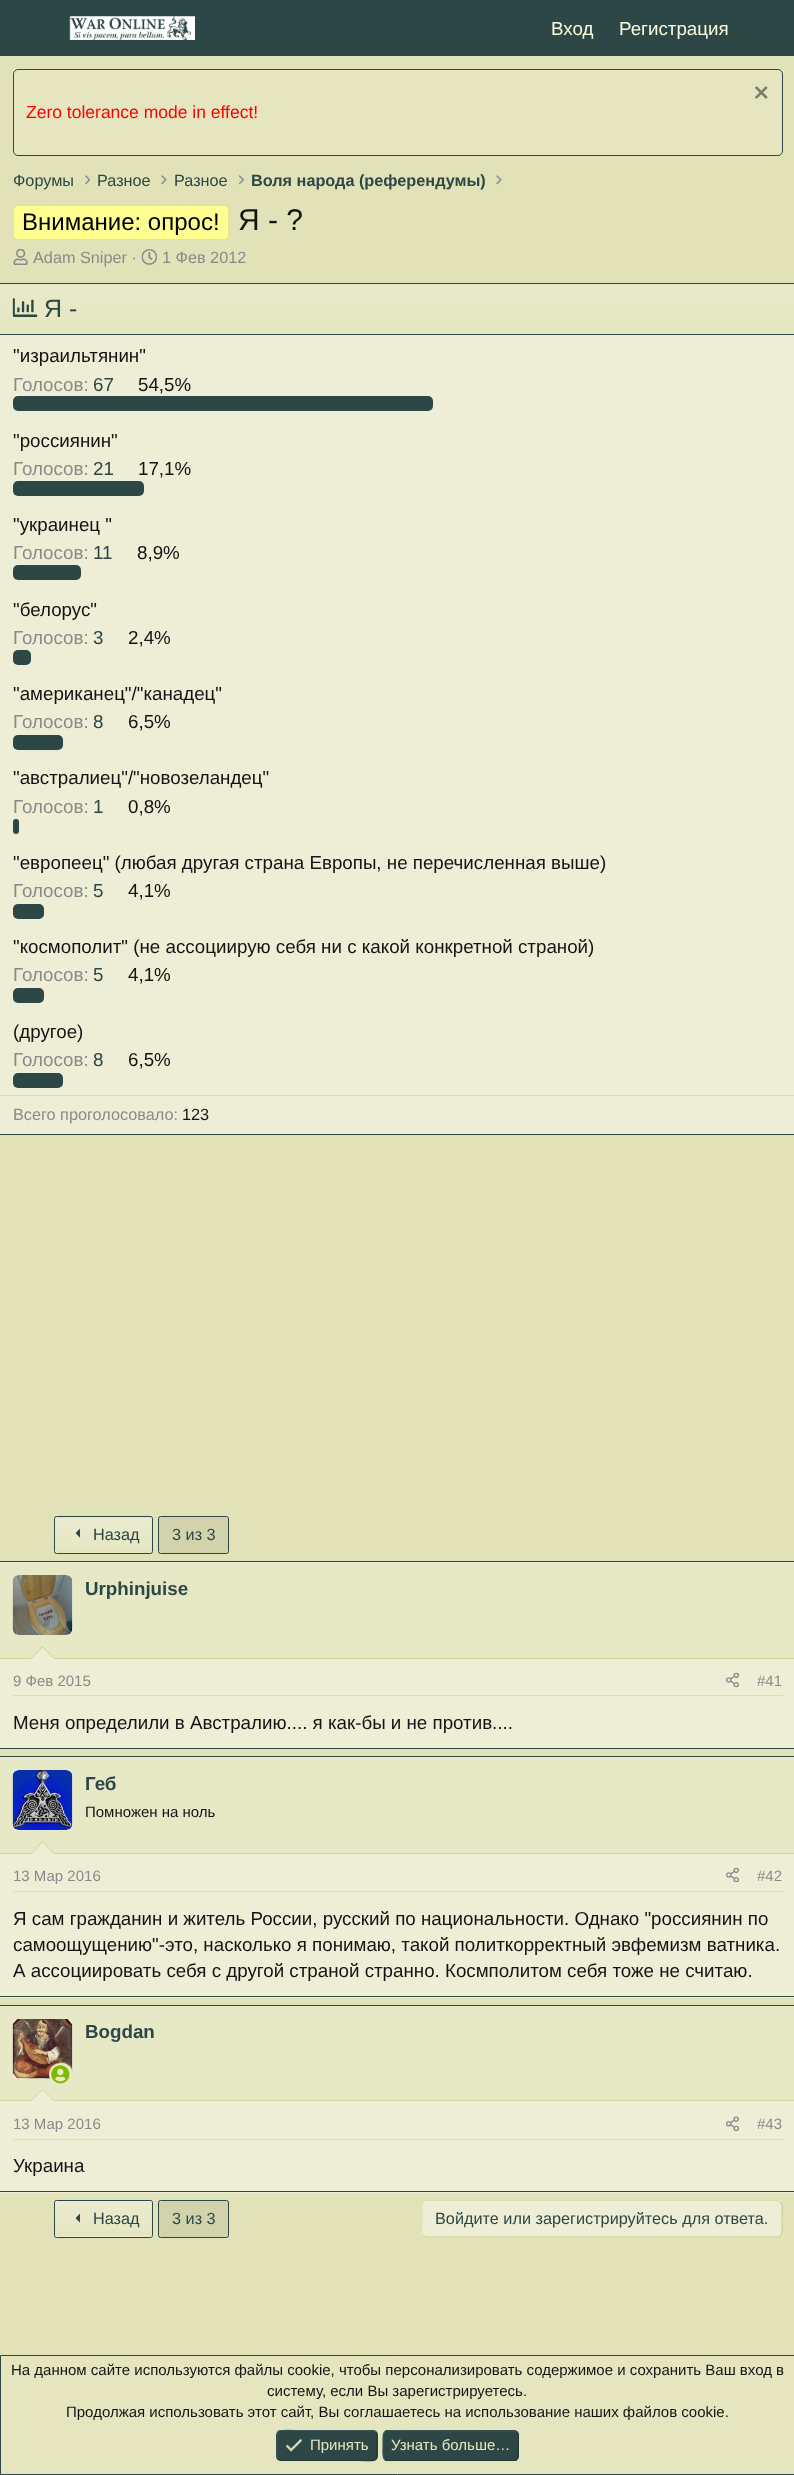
<!DOCTYPE html>
<meta charset="utf-8">
<style>body { margin: 0 } canvas { display: block }</style>
<canvas id="canvas" width="794" height="2475"></canvas>
<img id="img1" src="img_01.png" hidden>
<img id="img2" src="img_02.png" hidden>
<img id="img3" src="img_03.png" hidden>
<img id="img4" src="img_04.png" hidden>
<img id="img5" src="img_05.png" hidden>
<img id="img6" src="img_06.png" hidden>
<img id="img7" src="img_07.png" hidden>
<img id="img8" src="img_08.png" hidden>
<img id="img9" src="img_09.png" hidden>
<img id="img10" src="img_10.png" hidden>
<img id="img11" src="img_11.png" hidden>
<img id="img12" src="img_12.png" hidden>
<img id="img13" src="img_13.png" hidden>
<img id="img14" src="img_14.png" hidden>
<img id="img15" src="img_15.png" hidden>
<img id="img16" src="img_16.png" hidden>
<img id="img17" src="img_17.png" hidden>
<script>
window.onload = function () {
	const canvas = document.getElementById("canvas");
	const ctx = canvas.getContext("2d");
	ctx.miterLimit = 4;
	ctx.fontKerning = "normal";
	function txt(s, x, y) {
		ctx.fillText(s, x, y);
	}
	function fill(x, y, w, h) {
		ctx.fillRect(x, y, w, h);
	}
	function round(x, y, w, h, r) {
		ctx.beginPath();
		ctx.roundRect(x, y, w, h, r);
		ctx.fill();
	}
	function img(id, x, y, w, h) {
		ctx.drawImage(document.getElementById(id), x, y, w, h);
	}
	let gradient;

	ctx.fillStyle = "#E1E2B8";
	fill(0, 0, 794, 2475);
	ctx.fillStyle = "#2D4747";
	fill(0, 0, 794, 56);
	img("img1", 69, 16, 126, 24);
	ctx.fillStyle = "#E5E6C0";
	ctx.beginPath();
	ctx.roundRect(13.5, 69.5, 769, 86, 4.5);
	ctx.fill();
	ctx.strokeStyle = "#2D4747";
	ctx.stroke();
	img("img2", 755, 86, 13, 13);
	img("img3", 85, 175, 5, 10);
	img("img4", 161, 175, 6, 10);
	img("img5", 239, 175, 5, 10);
	img("img4", 496, 175, 6, 10);
	ctx.fillStyle = "#FFFF91";
	ctx.beginPath();
	ctx.roundRect(13.5, 205.5, 215, 34, 4.5);
	ctx.fill();
	ctx.strokeStyle = "#E6E687";
	ctx.stroke();
	img("img6", 13, 249, 15, 16);
	img("img7", 141, 249, 16, 16);
	ctx.fillStyle = "#EDEED5";
	fill(0, 335, 794, 799);
	ctx.fillStyle = "#2D4747";
	fill(0, 283, 794, 1);
	fill(0, 1134, 794, 1);
	gradient = ctx.createLinearGradient(398, 334, 398, 284);
	gradient.addColorStop(0, "#E5E6C0");
	gradient.addColorStop(1, "#E9EACB");
	ctx.fillStyle = gradient;
	fill(0, 284, 794, 50);
	ctx.fillStyle = "#2D4747";
	fill(0, 334, 794, 1);
	img("img8", 12, 298, 26, 19);
	round(13, 396, 420, 15, 5);
	round(13, 481, 131, 15, 5);
	round(13, 565, 68, 15, 5);
	round(13, 650, 18, 15, 5);
	round(13, 735, 50, 15, 5);
	round(13, 819, 6, 15, 3);
	round(13, 904, 31, 15, 5);
	round(13, 988, 31, 15, 5);
	round(13, 1073, 50, 15, 5);
	ctx.fillStyle = "#DADCA9";
	fill(0, 1095, 794, 1);
	ctx.save();
	ctx.beginPath();
	ctx.roundRect(54, 1516, 99, 38, 2.5);
	ctx.clip();
	gradient = ctx.createLinearGradient(103, 1518, 103, 1483);
	gradient.addColorStop(0, "#E5E6C0");
	gradient.addColorStop(1, "#EBECD0");
	ctx.fillStyle = gradient;
	fill(54, 1516, 99, 2);
	ctx.restore();
	gradient = ctx.createLinearGradient(103, 1553, 103, 1518);
	gradient.addColorStop(0, "#E5E6C0");
	gradient.addColorStop(1, "#EBECD0");
	ctx.fillStyle = gradient;
	fill(54, 1518, 99, 35);
	ctx.beginPath();
	ctx.roundRect(54.5, 1516.5, 98, 37, 2);
	ctx.strokeStyle = "#2D4747";
	ctx.stroke();
	img("img9", 75, 1528, 5, 10);
	ctx.fillStyle = "#D2D3AC";
	ctx.beginPath();
	ctx.roundRect(158.5, 1516.5, 70, 37, 2);
	ctx.fill();
	ctx.stroke();
	ctx.fillStyle = "#EDEED5";
	fill(0, 1562, 794, 186);
	ctx.fillStyle = "#2D4747";
	fill(0, 1561, 794, 1);
	fill(0, 1748, 794, 1);
	ctx.fillStyle = "#E7E8C6";
	fill(0, 1563, 794, 95);
	ctx.fillStyle = "#D4D69B";
	fill(0, 1658, 794, 1);
	ctx.fillStyle = "#EDEED5";
	round(13, 1575, 60, 60, 6);
	img("img10", 12, 1575, 61, 60);
	ctx.fillStyle = "#D4D69B";
	ctx.beginPath();
	ctx.moveTo(55, 1659);
	ctx.lineTo(30, 1659);
	ctx.lineTo(42.5, 1646);
	ctx.closePath();
	ctx.fill();
	ctx.fillStyle = "#EDEED5";
	ctx.beginPath();
	ctx.moveTo(54, 1659);
	ctx.lineTo(31, 1659);
	ctx.lineTo(42.5, 1647.5);
	ctx.closePath();
	ctx.fill();
	ctx.fillStyle = "#DDDFB1";
	fill(13, 1695, 770, 1);
	img("img11", 726, 1672, 13, 16);
	ctx.fillStyle = "#EDEED5";
	fill(0, 1757, 794, 241);
	ctx.fillStyle = "#2D4747";
	fill(0, 1756, 794, 1);
	fill(0, 1996, 794, 1);
	ctx.fillStyle = "#E7E8C6";
	fill(0, 1758, 794, 95);
	ctx.fillStyle = "#D4D69B";
	fill(0, 1853, 794, 1);
	ctx.fillStyle = "#EDEED5";
	round(13, 1770, 60, 60, 6);
	img("img12", 12, 1770, 61, 60);
	ctx.fillStyle = "#D4D69B";
	ctx.beginPath();
	ctx.moveTo(55, 1854);
	ctx.lineTo(30, 1854);
	ctx.lineTo(42.5, 1841);
	ctx.closePath();
	ctx.fill();
	ctx.fillStyle = "#EDEED5";
	ctx.beginPath();
	ctx.moveTo(54, 1854);
	ctx.lineTo(31, 1854);
	ctx.lineTo(42.5, 1842.5);
	ctx.closePath();
	ctx.fill();
	ctx.fillStyle = "#DDDFB1";
	fill(13, 1891, 770, 1);
	img("img11", 726, 1867, 13, 16);
	ctx.fillStyle = "#EDEED5";
	fill(0, 2101, 794, 92);
	ctx.fillStyle = "#2D4747";
	fill(0, 2005, 794, 1);
	fill(0, 2191, 794, 1);
	ctx.fillStyle = "#E7E8C6";
	fill(0, 2006, 794, 94);
	ctx.fillStyle = "#D4D69B";
	fill(0, 2100, 794, 1);
	ctx.fillStyle = "#EDEED5";
	round(13, 2019, 60, 60, 6);
	img("img13", 12, 2019, 61, 60);
	ctx.fillStyle = "#E7E8C6";
	round(49, 2063, 24, 23, 11.5);
	img("img14", 51, 2065, 19, 19);
	ctx.fillStyle = "#D4D69B";
	ctx.beginPath();
	ctx.moveTo(55, 2101);
	ctx.lineTo(30, 2101);
	ctx.lineTo(42.5, 2089);
	ctx.closePath();
	ctx.fill();
	ctx.fillStyle = "#EDEED5";
	ctx.beginPath();
	ctx.moveTo(54, 2101);
	ctx.lineTo(31, 2101);
	ctx.lineTo(42.5, 2090);
	ctx.closePath();
	ctx.fill();
	ctx.fillStyle = "#DDDFB1";
	fill(13, 2139, 770, 1);
	img("img15", 726, 2116, 13, 15);
	gradient = ctx.createLinearGradient(103, 2236, 103, 2201);
	gradient.addColorStop(0, "#E5E6C0");
	gradient.addColorStop(1, "#EBECD0");
	ctx.fillStyle = gradient;
	fill(54, 2201, 99, 35);
	ctx.save();
	ctx.beginPath();
	ctx.roundRect(54, 2200, 99, 38, 2.5);
	ctx.clip();
	gradient = ctx.createLinearGradient(103, 2271, 103, 2236);
	gradient.addColorStop(0, "#E5E6C0");
	gradient.addColorStop(1, "#EBECD0");
	ctx.fillStyle = gradient;
	fill(54, 2236, 99, 2);
	ctx.restore();
	ctx.beginPath();
	ctx.roundRect(54.5, 2200.5, 98, 37, 2);
	ctx.stroke();
	img("img16", 75, 2213, 5, 10);
	ctx.fillStyle = "#D2D3AC";
	ctx.beginPath();
	ctx.roundRect(158.5, 2200.5, 70, 37, 2);
	ctx.fill();
	ctx.stroke();
	ctx.fillStyle = "#EDEED5";
	round(421, 2200, 362, 38, 5);
	ctx.beginPath();
	ctx.moveTo(780.5, 2202);
	ctx.bezierCurveTo(783.5, 2204.5, 782, 2211, 782, 2214);
	ctx.lineTo(782, 2223.5);
	ctx.bezierCurveTo(782, 2226.5, 784, 2237, 777.5, 2237);
	ctx.lineTo(426, 2237);
	ctx.lineTo(423, 2235.5);
	ctx.strokeStyle = "#CCCF89";
	ctx.lineWidth = 1.2;
	ctx.stroke();
	ctx.beginPath();
	ctx.moveTo(423, 2235.5);
	ctx.bezierCurveTo(420.5, 2233, 422, 2226.5, 422, 2223.5);
	ctx.lineTo(422, 2214);
	ctx.bezierCurveTo(422, 2211, 420, 2200.5, 426, 2200.5);
	ctx.lineTo(777.5, 2200.5);
	ctx.lineTo(780.5, 2202);
	ctx.strokeStyle = "#DCDEAD";
	ctx.stroke();
	ctx.fillStyle = "#E5E6C0";
	ctx.beginPath();
	ctx.rect(0.5, 2355.5, 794, 119);
	ctx.fill();
	ctx.strokeStyle = "#2D4747";
	ctx.lineWidth = 1;
	ctx.stroke();
	ctx.fillStyle = "#2D4747";
	round(276, 2430, 102, 31, 5);
	ctx.beginPath();
	ctx.moveTo(375.5, 2432);
	ctx.bezierCurveTo(378, 2434.5, 377, 2442.5, 377, 2445.5);
	ctx.bezierCurveTo(377, 2464, 378, 2460.5, 357.5, 2460.5);
	ctx.lineTo(281, 2460.5);
	ctx.lineTo(278, 2459.5);
	ctx.strokeStyle = "#233737";
	ctx.lineWidth = 1.2;
	ctx.stroke();
	ctx.beginPath();
	ctx.moveTo(278, 2459.5);
	ctx.bezierCurveTo(275.5, 2456.5, 277, 2449, 277, 2445.5);
	ctx.bezierCurveTo(277, 2427, 276, 2430.5, 296.5, 2430.5);
	ctx.lineTo(372.5, 2430.5);
	ctx.lineTo(375.5, 2432);
	ctx.strokeStyle = "#375757";
	ctx.stroke();
	img("img17", 286, 2438, 16, 14);
	round(383, 2430, 136, 31, 5);
	ctx.beginPath();
	ctx.moveTo(517, 2432);
	ctx.bezierCurveTo(519.5, 2434.5, 518, 2442.5, 518, 2445.5);
	ctx.lineTo(518, 2452.5);
	ctx.bezierCurveTo(518, 2456, 518.5, 2460.5, 514, 2460.5);
	ctx.lineTo(386, 2460.5);
	ctx.lineTo(384.5, 2459.5);
	ctx.strokeStyle = "#233737";
	ctx.stroke();
	ctx.beginPath();
	ctx.moveTo(384.5, 2459.5);
	ctx.bezierCurveTo(382, 2456.5, 383, 2449, 383, 2445.5);
	ctx.lineTo(383, 2438.5);
	ctx.bezierCurveTo(383, 2435.5, 383, 2430.5, 387.5, 2430.5);
	ctx.lineTo(515.5, 2431);
	ctx.lineTo(517, 2432);
	ctx.strokeStyle = "#375757";
	ctx.stroke();
	ctx.font = "18.75px Liberation Sans";
	ctx.fillStyle = "#FAFBDC";
	txt("Вход", 551, 35);
	txt("Регистрация", 619, 35);
	ctx.font = "17.5px Liberation Sans";
	ctx.fillStyle = "#FF0000";
	txt("Zero tolerance mode in effect!", 26, 118);
	ctx.font = "16.25px Liberation Sans";
	ctx.fillStyle = "#2D4747";
	txt("Форумы", 13, 186);
	txt("Разное", 97, 186);
	txt("Разное", 174, 186);
	ctx.font = "bold 16.25px Liberation Sans";
	txt("Воля народа (референдумы)", 251, 186);
	ctx.font = "24px Liberation Sans";
	ctx.fillStyle = "#000000";
	txt("Внимание: опрос!", 22, 230);
	ctx.font = "30px Liberation Sans";
	ctx.fillStyle = "#141414";
	txt("Я - ?", 238, 230);
	ctx.font = "16.25px Liberation Sans";
	ctx.fillStyle = "#8A8A8A";
	txt("Adam Sniper ·", 33, 263);
	txt("1 Фев 2012", 162, 263);
	ctx.font = "25px Liberation Sans";
	ctx.fillStyle = "#2D4747";
	txt("Я -", 44, 317);
	ctx.font = "18.75px Liberation Sans";
	ctx.fillStyle = "#141414";
	txt("\"израильтянин\"", 13, 362);
	ctx.fillStyle = "#8A8A8A";
	txt("Голосов:", 13, 391);
	ctx.fillStyle = "#2D4747";
	txt("67", 93, 391);
	ctx.fillStyle = "#141414";
	txt("54,5%", 138, 391);
	txt("\"россиянин\"", 13, 447);
	ctx.fillStyle = "#8A8A8A";
	txt("Голосов:", 13, 475);
	ctx.fillStyle = "#2D4747";
	txt("21", 93, 475);
	ctx.fillStyle = "#141414";
	txt("17,1%", 138, 475);
	txt("\"украинец \"", 13, 531);
	ctx.fillStyle = "#8A8A8A";
	txt("Голосов:", 13, 559);
	ctx.fillStyle = "#2D4747";
	txt("11", 93, 559);
	ctx.fillStyle = "#141414";
	txt("8,9%", 137, 559);
	txt("\"белорус\"", 13, 616);
	ctx.fillStyle = "#8A8A8A";
	txt("Голосов:", 13, 644);
	ctx.fillStyle = "#2D4747";
	txt("3", 93, 644);
	ctx.fillStyle = "#141414";
	txt("2,4%", 128, 644);
	txt("\"американец\"/\"канадец\"", 13, 700);
	ctx.fillStyle = "#8A8A8A";
	txt("Голосов:", 13, 728);
	ctx.fillStyle = "#2D4747";
	txt("8", 93, 728);
	ctx.fillStyle = "#141414";
	txt("6,5%", 128, 728);
	txt("\"австралиец\"/\"новозеландец\"", 13, 784);
	ctx.fillStyle = "#8A8A8A";
	txt("Голосов:", 13, 813);
	ctx.fillStyle = "#2D4747";
	txt("1", 93, 813);
	ctx.fillStyle = "#141414";
	txt("0,8%", 128, 813);
	txt("\"европеец\" (любая другая страна Европы, не перечисленная выше)", 13, 869);
	ctx.fillStyle = "#8A8A8A";
	txt("Голосов:", 13, 897);
	ctx.fillStyle = "#2D4747";
	txt("5", 93, 897);
	ctx.fillStyle = "#141414";
	txt("4,1%", 128, 897);
	txt("\"космополит\" (не ассоциирую себя ни с какой конкретной страной)", 13, 953);
	ctx.fillStyle = "#8A8A8A";
	txt("Голосов:", 13, 981);
	ctx.fillStyle = "#2D4747";
	txt("5", 93, 981);
	ctx.fillStyle = "#141414";
	txt("4,1%", 128, 981);
	txt("(другое)", 13, 1038);
	ctx.fillStyle = "#8A8A8A";
	txt("Голосов:", 13, 1066);
	ctx.fillStyle = "#2D4747";
	txt("8", 93, 1066);
	ctx.fillStyle = "#141414";
	txt("6,5%", 128, 1066);
	ctx.font = "16.25px Liberation Sans";
	ctx.fillStyle = "#8A8A8A";
	txt("Всего проголосовало:", 13, 1120);
	ctx.fillStyle = "#141414";
	txt("123", 182, 1120);
	ctx.fillStyle = "#2D4747";
	txt("Назад", 93, 1540);
	txt("3 из 3", 172, 1540);
	ctx.font = "bold 18.75px Liberation Sans";
	txt("Urphinjuise", 85, 1595);
	ctx.font = "15px Liberation Sans";
	ctx.fillStyle = "#8A8A8A";
	txt("9 Фев 2015", 13, 1686);
	txt("#41", 757, 1686);
	ctx.font = "18.75px Liberation Sans";
	ctx.fillStyle = "#141414";
	txt("Меня определили в Австралию.... я как-бы и не против....", 13, 1729);
	ctx.font = "bold 18.75px Liberation Sans";
	ctx.fillStyle = "#2D4747";
	txt("Геб", 85, 1790);
	ctx.font = "15px Liberation Sans";
	ctx.fillStyle = "#141414";
	txt("Помножен на ноль", 85, 1817);
	ctx.fillStyle = "#8A8A8A";
	txt("13 Мар 2016", 13, 1881);
	txt("#42", 757, 1881);
	ctx.font = "18.75px Liberation Sans";
	ctx.fillStyle = "#141414";
	txt("Я сам гражданин и житель России, русский по национальности. Однако \"россиянин по", 13, 1925);
	txt("самоощущению\"-это, насколько я понимаю, такой политкорректный эвфемизм ватника.", 13, 1951);
	txt("А ассоциировать себя с другой страной странно. Космполитом себя тоже не считаю.", 13, 1977);
	ctx.font = "bold 18.75px Liberation Sans";
	ctx.fillStyle = "#2D4747";
	txt("Bogdan", 85, 2038);
	ctx.font = "15px Liberation Sans";
	ctx.fillStyle = "#8A8A8A";
	txt("13 Мар 2016", 13, 2129);
	txt("#43", 757, 2129);
	ctx.font = "18.75px Liberation Sans";
	ctx.fillStyle = "#141414";
	txt("Украина", 13, 2172);
	ctx.font = "16.25px Liberation Sans";
	ctx.fillStyle = "#2D4747";
	txt("Назад", 93, 2224);
	txt("3 из 3", 172, 2224);
	txt("Войдите или зарегистрируйтесь для ответа.", 435, 2224);
	ctx.font = "15px Liberation Sans";
	ctx.fillStyle = "#141414";
	txt("На данном сайте используются файлы cookie, чтобы персонализировать содержимое и сохранить Ваш вход в", 11, 2375);
	txt("систему, если Вы зарегистрируетесь.", 267, 2396);
	txt("Продолжая использовать этот сайт, Вы соглашаетесь на использование наших файлов cookie.", 66, 2417);
	ctx.fillStyle = "#E5E6C0";
	txt("Принять", 310, 2450);
	txt("Узнать больше…", 391, 2450);
};
</script>
